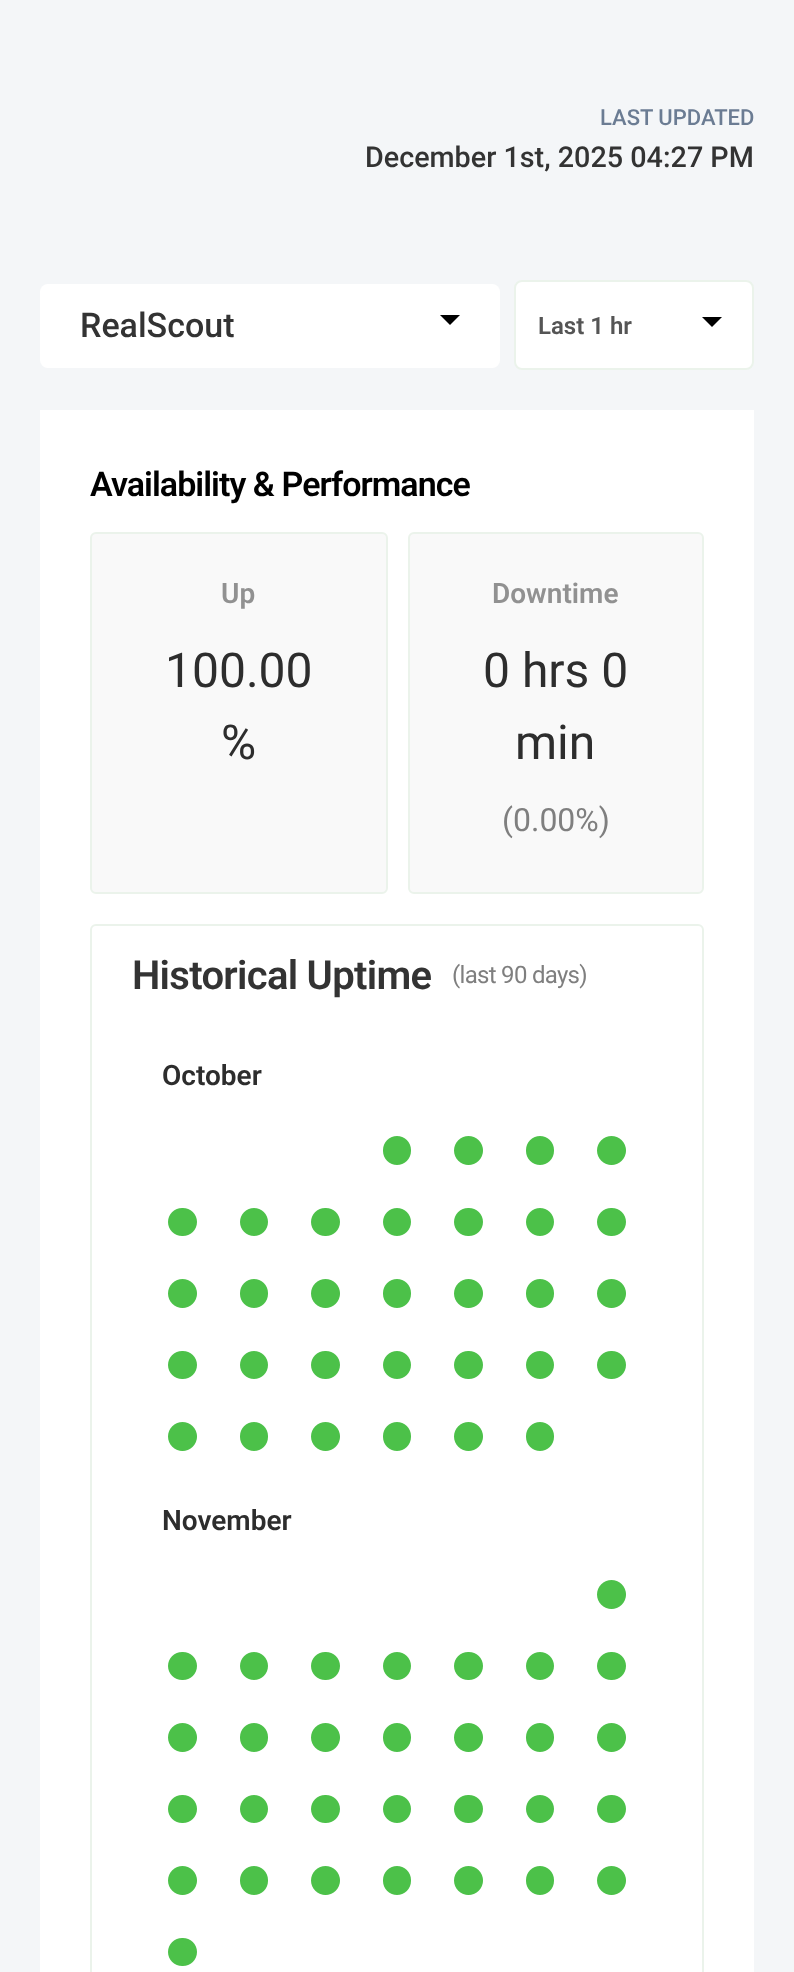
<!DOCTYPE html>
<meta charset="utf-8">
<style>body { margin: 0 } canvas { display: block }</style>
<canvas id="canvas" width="794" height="1972"></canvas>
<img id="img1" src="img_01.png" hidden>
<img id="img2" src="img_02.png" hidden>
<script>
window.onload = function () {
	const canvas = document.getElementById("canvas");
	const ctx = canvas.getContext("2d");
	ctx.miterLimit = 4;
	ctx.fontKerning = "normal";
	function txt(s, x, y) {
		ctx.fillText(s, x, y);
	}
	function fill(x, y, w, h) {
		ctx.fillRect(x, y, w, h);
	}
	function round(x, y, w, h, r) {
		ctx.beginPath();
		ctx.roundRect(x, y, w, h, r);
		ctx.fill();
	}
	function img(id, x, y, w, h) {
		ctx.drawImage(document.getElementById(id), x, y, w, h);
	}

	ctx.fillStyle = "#F4F6F8";
	fill(0, 0, 794, 1972);
	ctx.fillStyle = "#FFFFFF";
	round(40, 284, 460, 84, 8);
	ctx.fillStyle = "#000000";
	ctx.beginPath();
	ctx.moveTo(440, 315);
	ctx.lineTo(450, 325);
	ctx.lineTo(460, 315);
	ctx.closePath();
	ctx.fill();
	ctx.fillStyle = "#FFFFFF";
	ctx.beginPath();
	ctx.roundRect(515, 281, 238, 88, 7);
	ctx.fill();
	ctx.strokeStyle = "#EBF3EB";
	ctx.lineWidth = 2;
	ctx.stroke();
	ctx.fillStyle = "#000000";
	ctx.beginPath();
	ctx.moveTo(702, 317);
	ctx.lineTo(712, 327);
	ctx.lineTo(722, 317);
	ctx.closePath();
	ctx.fill();
	ctx.fillStyle = "#FFFFFF";
	fill(40, 410, 714, 1562);
	ctx.fillStyle = "#F9F9F9";
	ctx.beginPath();
	ctx.roundRect(91, 533, 296, 360, 5);
	ctx.fill();
	ctx.stroke();
	ctx.beginPath();
	ctx.roundRect(409, 533, 294, 360, 5);
	ctx.fill();
	ctx.stroke();
	ctx.beginPath();
	ctx.roundRect(91, 925, 612, 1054, 5);
	ctx.stroke();
	img("img1", 168, 1136, 458, 315);
	img("img2", 168, 1580, 458, 386);
	ctx.font = "500 22px Roboto";
	ctx.fillStyle = "#6B7C93";
	txt("LAST UPDATED", 600, 125);
	ctx.font = "500 28.75px Roboto";
	ctx.fillStyle = "#333333";
	txt("December 1st, 2025 04:27 PM", 365, 167);
	ctx.font = "500 34px Roboto";
	txt("RealScout", 80, 337);
	ctx.font = "600 24px Roboto";
	ctx.fillStyle = "#555555";
	txt("Last 1 hr", 538, 334);
	ctx.letterSpacing = "-0.95px";
	ctx.font = "600 34px Roboto";
	ctx.fillStyle = "#000000";
	txt("Availability & Performance", 90, 496);
	ctx.letterSpacing = "0px";
	ctx.font = "600 28px Roboto";
	ctx.fillStyle = "#919191";
	txt("Up", 221, 603);
	ctx.font = "48px Roboto";
	ctx.fillStyle = "#2D2D2D";
	txt("100.00", 165, 687);
	txt("%", 221, 759);
	ctx.font = "600 28px Roboto";
	ctx.fillStyle = "#919191";
	txt("Downtime", 492, 603);
	ctx.font = "48px Roboto";
	ctx.fillStyle = "#2D2D2D";
	txt("0 hrs 0", 483, 687);
	txt("min", 515, 759);
	ctx.font = "32px Roboto";
	ctx.fillStyle = "#7F7F7F";
	txt("(0.00%)", 502, 831);
	ctx.letterSpacing = "-0.7px";
	ctx.font = "600 40px Roboto";
	ctx.fillStyle = "#333333";
	txt("Historical Uptime", 132, 989);
	ctx.font = "24px Roboto";
	ctx.fillStyle = "#7F7F7F";
	txt("(last 90 days)", 452, 983);
	ctx.letterSpacing = "0px";
	ctx.font = "600 28px Roboto";
	ctx.fillStyle = "#2D2D2D";
	txt("October", 162, 1085);
	txt("November", 162, 1530);
};
</script>
